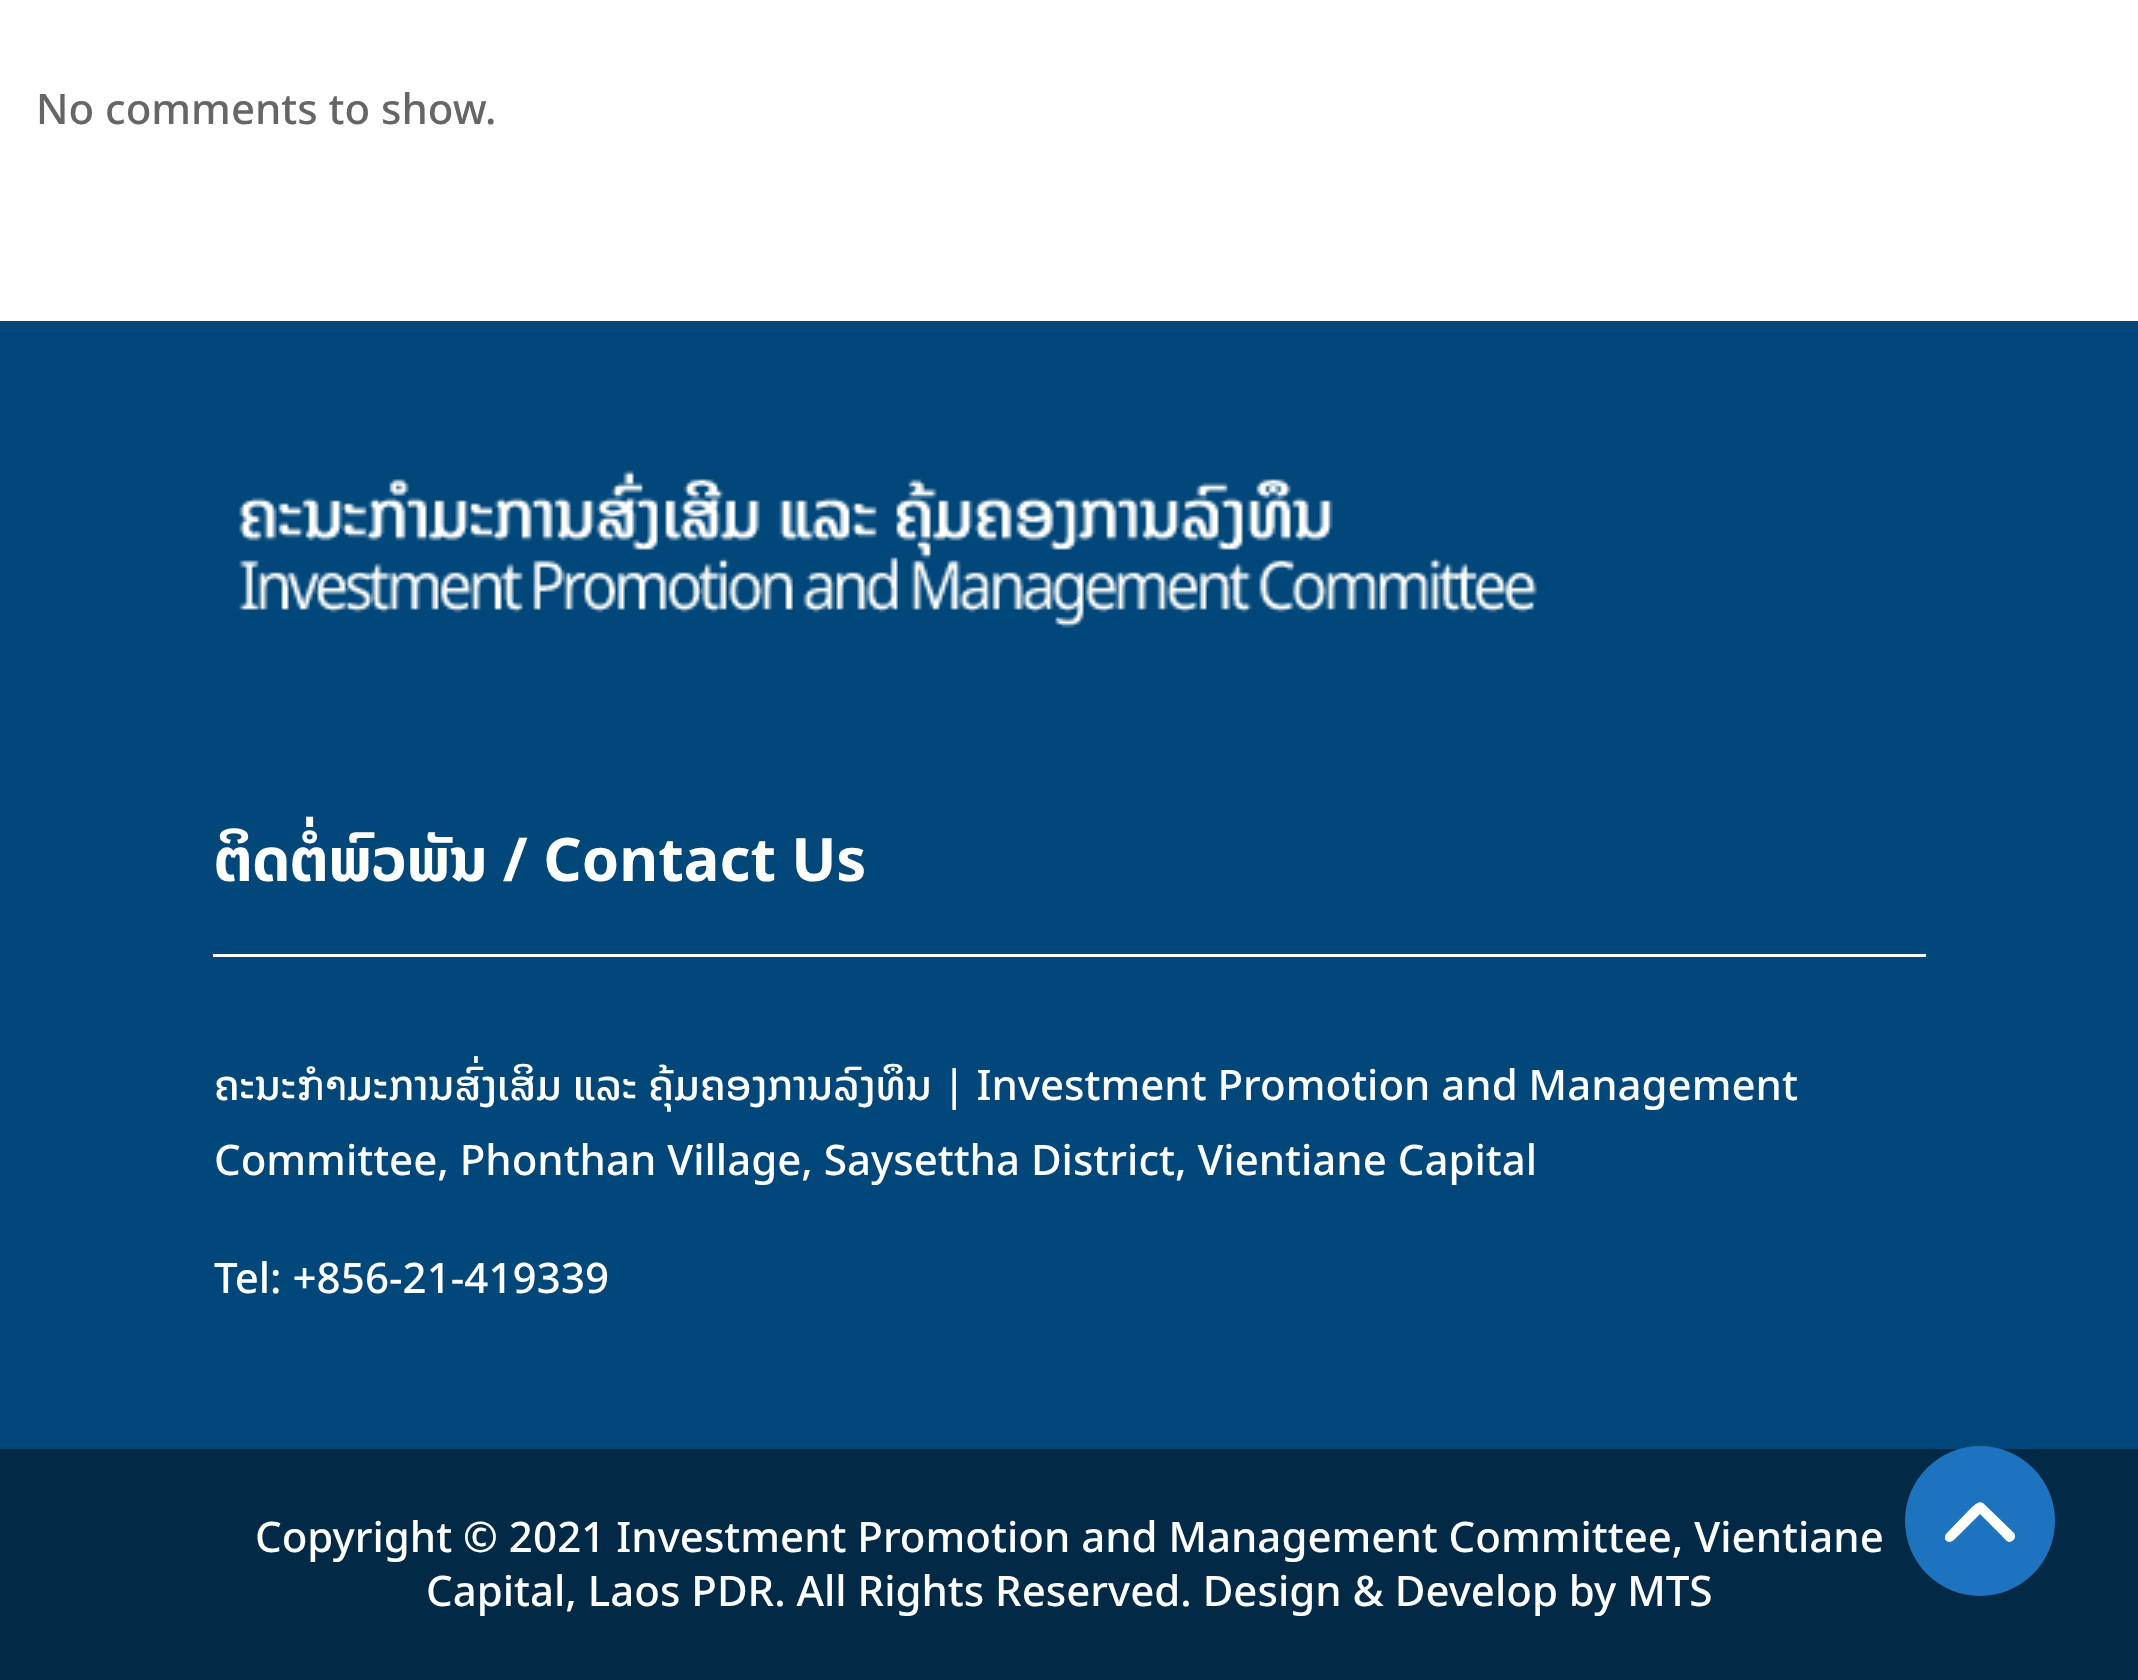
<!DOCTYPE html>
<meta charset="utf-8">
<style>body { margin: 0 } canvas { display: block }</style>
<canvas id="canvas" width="2138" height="1680"></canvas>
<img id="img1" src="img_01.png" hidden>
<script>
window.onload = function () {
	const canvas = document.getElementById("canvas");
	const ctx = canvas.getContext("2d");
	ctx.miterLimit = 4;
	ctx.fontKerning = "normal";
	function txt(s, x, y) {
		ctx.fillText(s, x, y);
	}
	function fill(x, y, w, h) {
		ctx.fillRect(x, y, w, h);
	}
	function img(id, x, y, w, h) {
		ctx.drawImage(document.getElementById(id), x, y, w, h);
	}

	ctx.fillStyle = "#FFFFFF";
	fill(0, 0, 2138, 1680);
	ctx.fillStyle = "#01477A";
	fill(0, 321, 2138, 1128);
	img("img1", 239, 470, 1299, 158);
	ctx.fillStyle = "#FFFFFF";
	fill(213, 954, 1713, 3);
	ctx.fillStyle = "#022A47";
	fill(0, 1449, 2138, 231);
	ctx.fillStyle = "#1E73BE";
	ctx.beginPath();
	ctx.arc(1980, 1521, 75, 0, Math.PI * 2);
	ctx.fill();
	ctx.fillStyle = "#FFFFFF";
	ctx.beginPath();
	ctx.moveTo(2014, 1533);
	ctx.lineTo(1983, 1503);
	ctx.bezierCurveTo(1978, 1500, 1974, 1506, 1971, 1508);
	ctx.lineTo(1946, 1534);
	ctx.bezierCurveTo(1945, 1535, 1945, 1537, 1945, 1539);
	ctx.bezierCurveTo(1949, 1546, 1955, 1539, 1958, 1536);
	ctx.lineTo(1980, 1514);
	ctx.lineTo(2002, 1536);
	ctx.bezierCurveTo(2005, 1539, 2008, 1544, 2012, 1541);
	ctx.bezierCurveTo(2015, 1540, 2016, 1536, 2014, 1533);
	ctx.closePath();
	ctx.fill();
	ctx.font = "500 42px Noto Sans Lao";
	ctx.fillStyle = "#666666";
	txt("No comments to show.", 36, 124);
	ctx.font = "bold 60px Noto Sans Lao";
	ctx.fillStyle = "#FFFFFF";
	txt("ຕິດຕໍ່ພົວພັນ / Contact Us", 214, 881);
	ctx.font = "500 42px Noto Sans Lao";
	txt("ຄະນະກຳມະການສົ່ງເສິມ ແລະ ຄຸ້ມຄອງການລົງທຶນ | Investment Promotion and Management", 214, 1100);
	txt("Committee, Phonthan Village, Saysettha District, Vientiane Capital", 214, 1175);
	txt("Tel: +856-21-419339", 214, 1293);
	txt("Copyright © 2021 Investment Promotion and Management Committee, Vientiane", 255, 1552);
	txt("Capital, Laos PDR. All Rights Reserved. Design & Develop by MTS", 426, 1606);
};
</script>
